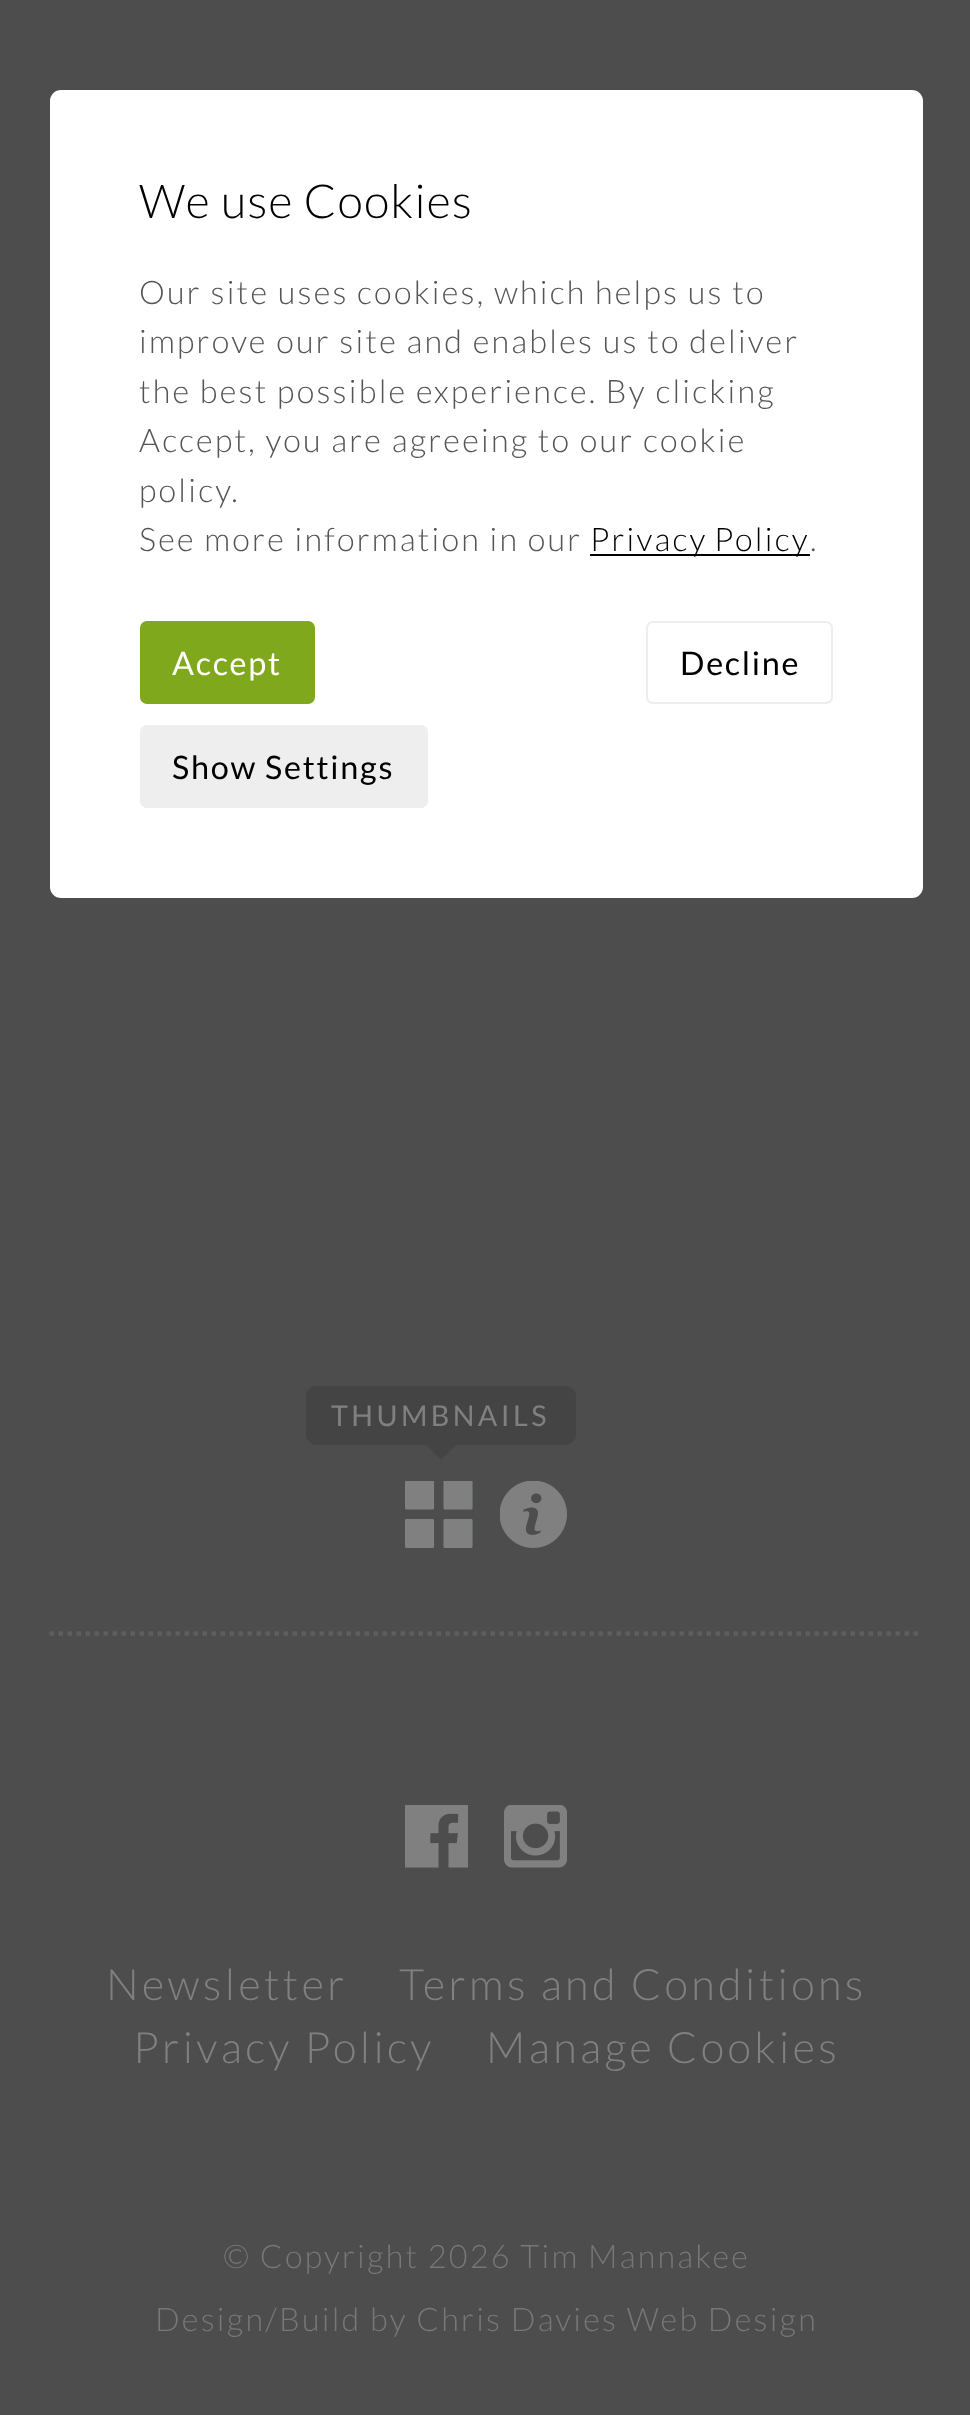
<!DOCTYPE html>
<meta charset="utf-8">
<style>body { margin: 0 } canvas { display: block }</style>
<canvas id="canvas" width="970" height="2415"></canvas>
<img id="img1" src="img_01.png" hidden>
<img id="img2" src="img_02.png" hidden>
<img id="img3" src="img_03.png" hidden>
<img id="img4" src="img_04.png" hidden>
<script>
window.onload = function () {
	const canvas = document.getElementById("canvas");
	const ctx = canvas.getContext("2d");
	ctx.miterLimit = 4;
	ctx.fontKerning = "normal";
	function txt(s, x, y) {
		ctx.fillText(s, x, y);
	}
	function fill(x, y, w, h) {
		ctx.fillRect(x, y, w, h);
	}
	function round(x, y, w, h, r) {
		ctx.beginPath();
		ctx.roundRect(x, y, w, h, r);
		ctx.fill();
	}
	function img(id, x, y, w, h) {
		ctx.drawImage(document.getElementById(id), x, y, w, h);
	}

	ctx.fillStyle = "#4D4D4D";
	fill(0, 0, 970, 2415);
	ctx.fillStyle = "#FFFFFF";
	round(50, 90, 873, 808, 11);
	ctx.fillStyle = "#000000";
	fill(590, 554, 220, 2);
	ctx.fillStyle = "#7FA81C";
	round(140, 621, 175, 83, 7);
	ctx.beginPath();
	ctx.roundRect(647, 622, 185, 81, 6);
	ctx.strokeStyle = "#EEEEEE";
	ctx.lineWidth = 2;
	ctx.stroke();
	ctx.fillStyle = "#EEEEEE";
	round(140, 725, 288, 83, 7);
	ctx.fillStyle = "#444444";
	round(306, 1386, 270, 59, 11);
	ctx.beginPath();
	ctx.moveTo(423, 1442);
	ctx.lineTo(459, 1442);
	ctx.lineTo(441, 1460);
	ctx.closePath();
	ctx.fill();
	img("img1", 405, 1481, 68, 67);
	img("img2", 500, 1481, 67, 67);
	ctx.beginPath();
	ctx.moveTo(49.5, 1633.5);
	ctx.lineTo(922.5, 1633.5);
	ctx.strokeStyle = "#5E5E5E";
	ctx.lineWidth = 4.5;
	ctx.setLineDash([4.5, 4.5]);
	ctx.stroke();
	img("img3", 405, 1805, 63, 63);
	img("img4", 504, 1805, 63, 63);
	ctx.letterSpacing = "1.1px";
	ctx.font = "300 46.75px Lato";
	ctx.fillStyle = "#000000";
	txt("We use Cookies", 139, 218);
	ctx.letterSpacing = "2.25px";
	ctx.font = "300 32.4px Lato";
	ctx.fillStyle = "#555555";
	txt("Our site uses cookies, which helps us to", 139, 304);
	txt("improve our site and enables us to deliver", 139, 353);
	txt("the best possible experience. By clicking", 139, 403);
	txt("Accept, you are agreeing to our cookie", 139, 452);
	txt("policy.", 139, 502);
	txt("See more information in our", 139, 551);
	ctx.wordSpacing = "-2px";
	ctx.fillStyle = "#000000";
	txt("Privacy Policy", 590, 551);
	ctx.wordSpacing = "0px";
	ctx.fillStyle = "#555555";
	txt(".", 810, 551);
	ctx.letterSpacing = "1.75px";
	ctx.font = "32.4px Lato";
	ctx.fillStyle = "#FFFFFF";
	txt("Accept", 172, 675);
	ctx.fillStyle = "#000000";
	txt("Decline", 680, 675);
	txt("Show Settings", 172, 779);
	ctx.letterSpacing = "3.4px";
	ctx.font = "28.75px Lato";
	ctx.fillStyle = "#808080";
	txt("THUMBNAILS", 331, 1426);
	ctx.font = "300 43.25px Lato";
	txt("Newsletter", 106, 2000);
	txt("Terms and Conditions", 399, 2000);
	txt("Privacy Policy", 133, 2063);
	txt("Manage Cookies", 486, 2063);
	ctx.letterSpacing = "2.25px";
	ctx.font = "300 32.4px Lato";
	ctx.fillStyle = "#777777";
	txt("© Copyright 2026 Tim Mannakee", 223, 2268);
	txt("Design/Build by Chris Davies Web Design", 155, 2331);
};
</script>
